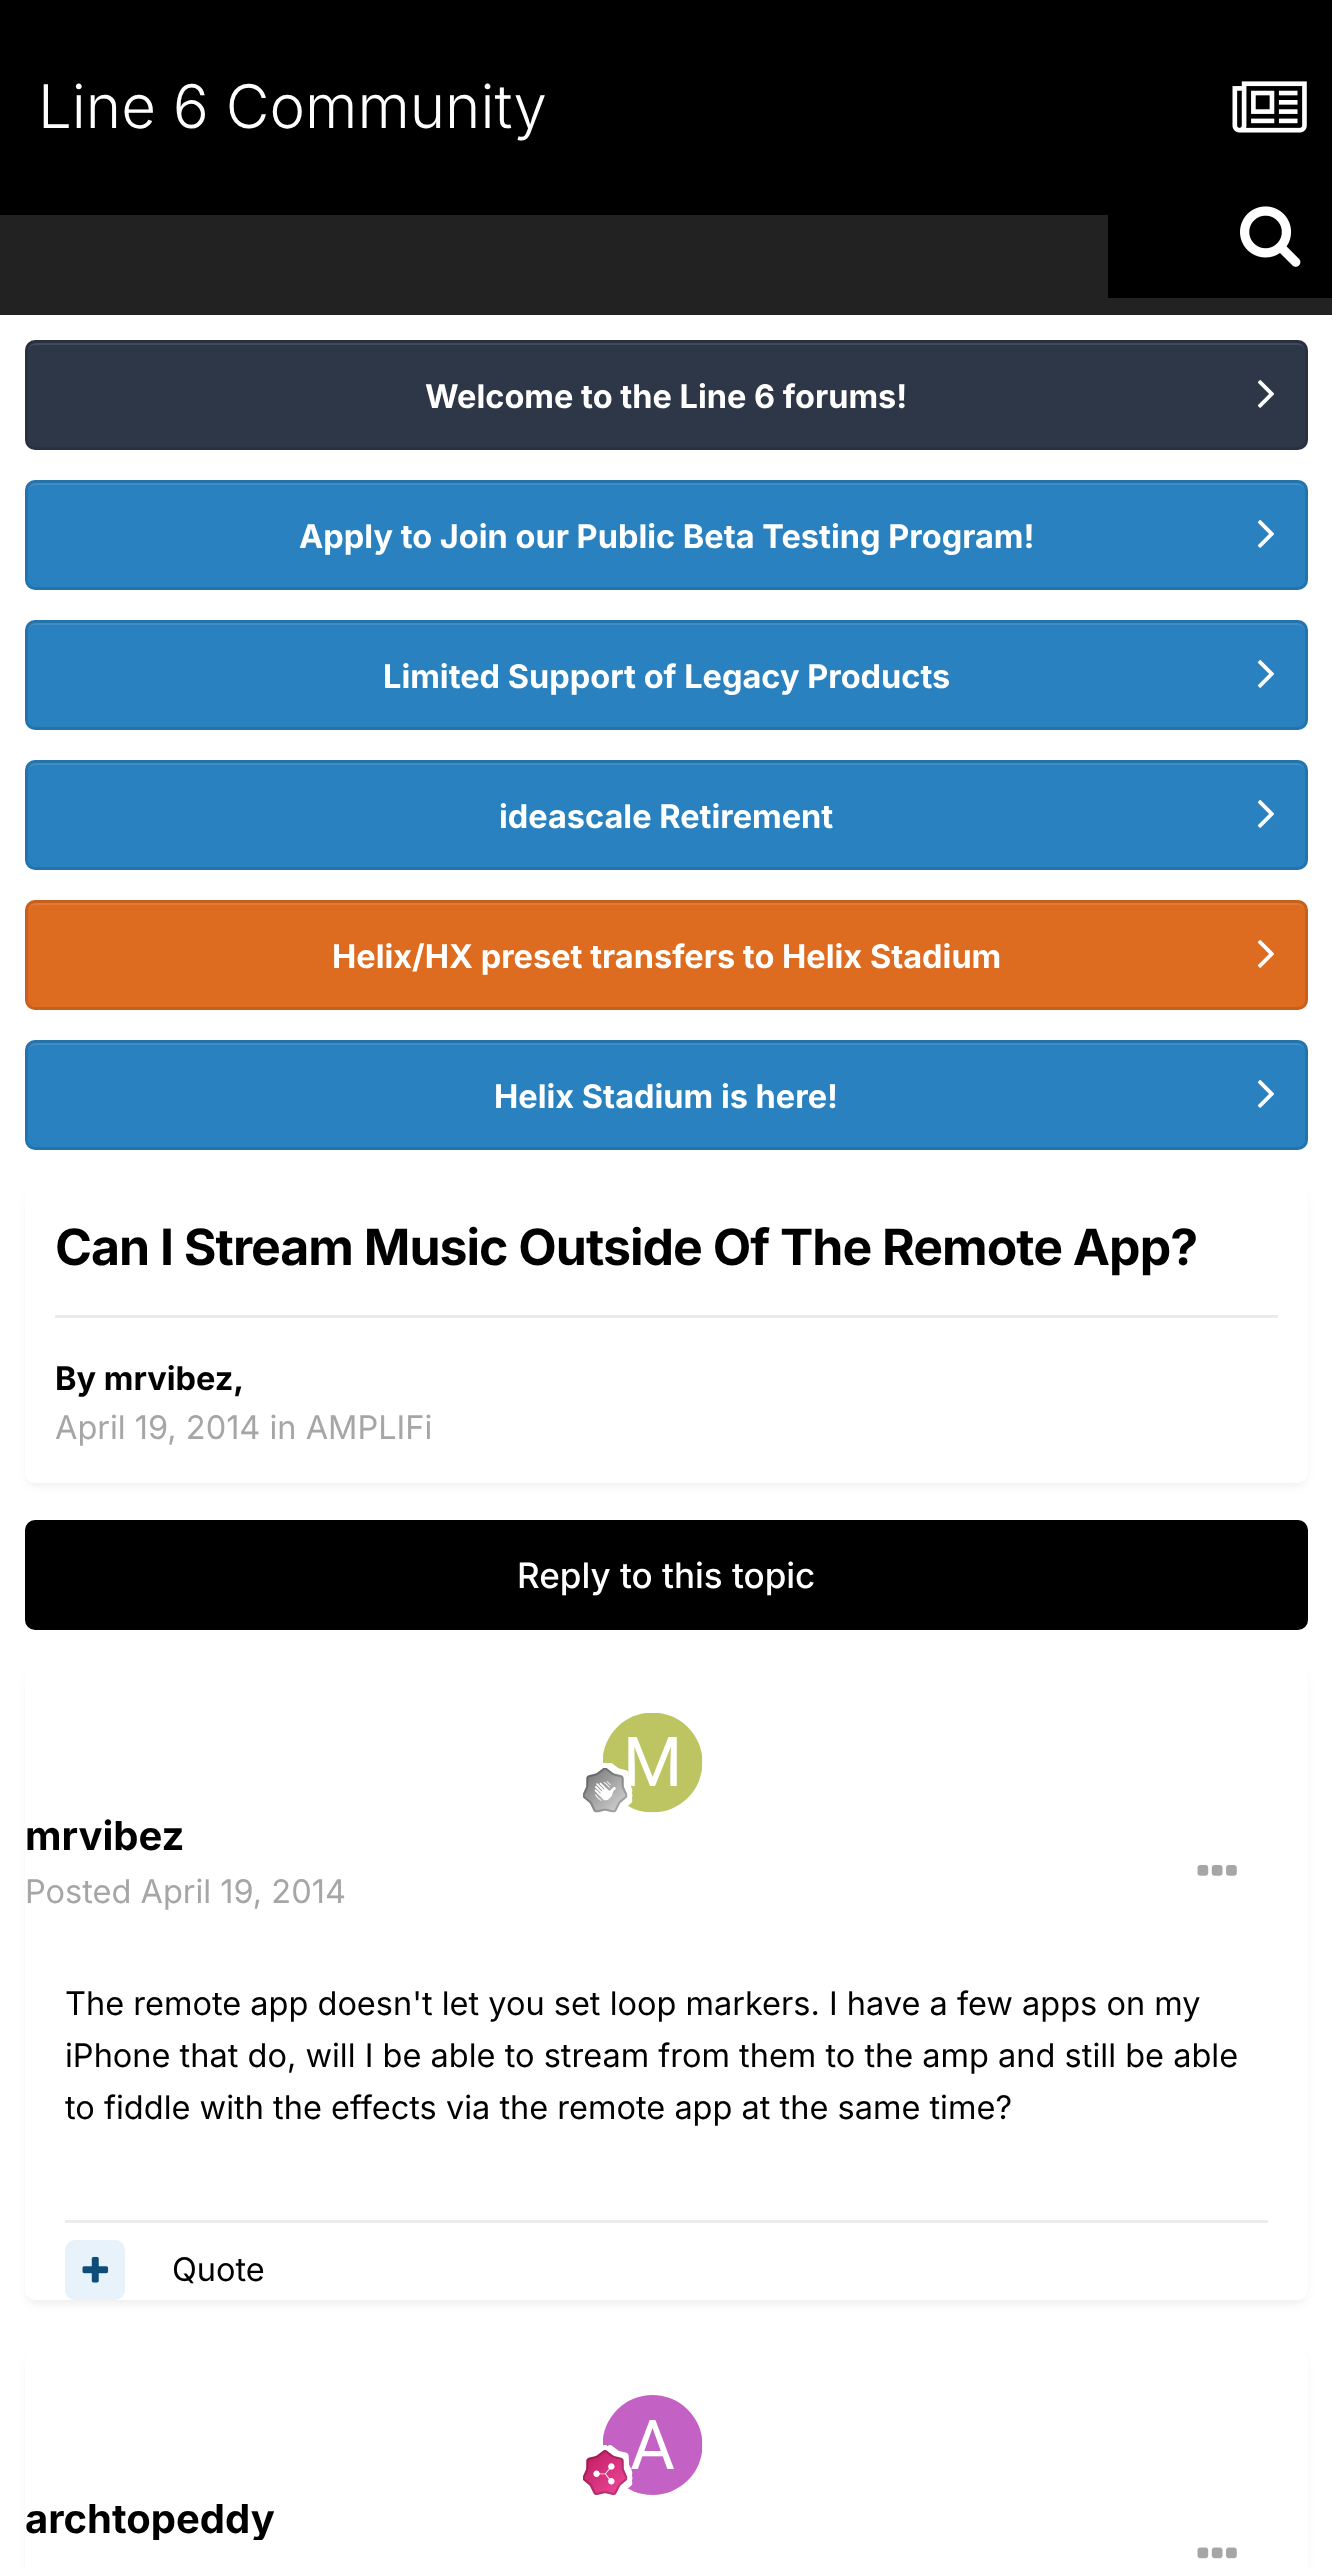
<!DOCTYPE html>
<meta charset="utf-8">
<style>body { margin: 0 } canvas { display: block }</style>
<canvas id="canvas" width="1332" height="2568"></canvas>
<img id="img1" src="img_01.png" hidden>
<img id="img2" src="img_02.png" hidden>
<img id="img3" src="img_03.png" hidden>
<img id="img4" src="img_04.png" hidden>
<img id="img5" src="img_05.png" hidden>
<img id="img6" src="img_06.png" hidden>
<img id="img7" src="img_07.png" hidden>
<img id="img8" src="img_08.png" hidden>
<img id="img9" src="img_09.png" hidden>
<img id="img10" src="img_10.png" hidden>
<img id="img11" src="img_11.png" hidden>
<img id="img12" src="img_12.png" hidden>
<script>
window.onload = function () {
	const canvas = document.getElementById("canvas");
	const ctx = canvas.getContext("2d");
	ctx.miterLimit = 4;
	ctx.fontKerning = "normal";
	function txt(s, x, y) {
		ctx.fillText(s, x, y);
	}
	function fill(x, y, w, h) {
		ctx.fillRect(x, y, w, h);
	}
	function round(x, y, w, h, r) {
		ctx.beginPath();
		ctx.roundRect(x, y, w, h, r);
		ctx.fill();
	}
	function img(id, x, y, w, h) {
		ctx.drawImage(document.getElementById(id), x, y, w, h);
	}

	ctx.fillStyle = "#222222";
	fill(0, 0, 1332, 2568);
	ctx.fillStyle = "#000000";
	fill(0, 0, 1332, 215);
	fill(1108, 215, 224, 83);
	img("img1", 1232, 81, 75, 52);
	img("img2", 1240, 206, 61, 61);
	ctx.fillStyle = "#FFFFFF";
	fill(0, 315, 1332, 2253);
	ctx.fillStyle = "#2D3748";
	round(25, 340, 1283, 110, 10);
	ctx.fillStyle = "#424B5A";
	ctx.beginPath();
	ctx.moveTo(35, 345);
	ctx.lineTo(1298, 345);
	ctx.bezierCurveTo(1302, 345, 1305, 348, 1305, 352);
	ctx.bezierCurveTo(1305, 347, 1302, 343, 1297, 343);
	ctx.lineTo(36, 343);
	ctx.bezierCurveTo(31, 343, 28, 347, 28, 352);
	ctx.bezierCurveTo(28, 348, 31, 345, 35, 345);
	ctx.closePath();
	ctx.fill();
	ctx.beginPath();
	ctx.roundRect(26.5, 341.5, 1280, 107, 8.5);
	ctx.strokeStyle = "rgba(0, 0, 0, 0.1)";
	ctx.lineWidth = 3;
	ctx.stroke();
	img("img3", 1257, 380, 17, 28);
	ctx.fillStyle = "#2981BF";
	round(25, 480, 1283, 110, 10);
	ctx.fillStyle = "#3E8EC5";
	ctx.beginPath();
	ctx.moveTo(35, 485);
	ctx.lineTo(1298, 485);
	ctx.bezierCurveTo(1302, 485, 1305, 488, 1305, 492);
	ctx.bezierCurveTo(1305, 487, 1302, 483, 1297, 483);
	ctx.lineTo(36, 483);
	ctx.bezierCurveTo(31, 483, 28, 487, 28, 492);
	ctx.bezierCurveTo(28, 488, 31, 485, 35, 485);
	ctx.closePath();
	ctx.fill();
	ctx.beginPath();
	ctx.roundRect(26.5, 481.5, 1280, 107, 8.5);
	ctx.stroke();
	img("img4", 1257, 520, 17, 28);
	ctx.fillStyle = "#2981BF";
	round(25, 620, 1283, 110, 10);
	ctx.fillStyle = "#3E8EC5";
	ctx.beginPath();
	ctx.moveTo(35, 625);
	ctx.lineTo(1298, 625);
	ctx.bezierCurveTo(1302, 625, 1305, 628, 1305, 632);
	ctx.bezierCurveTo(1305, 627, 1302, 623, 1297, 623);
	ctx.lineTo(36, 623);
	ctx.bezierCurveTo(31, 623, 28, 627, 28, 632);
	ctx.bezierCurveTo(28, 628, 31, 625, 35, 625);
	ctx.closePath();
	ctx.fill();
	ctx.beginPath();
	ctx.roundRect(26.5, 621.5, 1280, 107, 8.5);
	ctx.stroke();
	img("img4", 1257, 660, 17, 28);
	ctx.fillStyle = "#2981BF";
	round(25, 760, 1283, 110, 10);
	ctx.fillStyle = "#3E8EC5";
	ctx.beginPath();
	ctx.moveTo(35, 765);
	ctx.lineTo(1298, 765);
	ctx.bezierCurveTo(1302, 765, 1305, 768, 1305, 772);
	ctx.bezierCurveTo(1305, 767, 1302, 763, 1297, 763);
	ctx.lineTo(36, 763);
	ctx.bezierCurveTo(31, 763, 28, 767, 28, 772);
	ctx.bezierCurveTo(28, 768, 31, 765, 35, 765);
	ctx.closePath();
	ctx.fill();
	ctx.beginPath();
	ctx.roundRect(26.5, 761.5, 1280, 107, 8.5);
	ctx.stroke();
	img("img4", 1257, 800, 17, 28);
	ctx.fillStyle = "#DD6B20";
	round(25, 900, 1283, 110, 10);
	ctx.fillStyle = "#E07A36";
	ctx.beginPath();
	ctx.moveTo(35, 905);
	ctx.lineTo(1298, 905);
	ctx.bezierCurveTo(1302, 905, 1305, 908, 1305, 912);
	ctx.bezierCurveTo(1305, 907, 1302, 903, 1297, 903);
	ctx.lineTo(36, 903);
	ctx.bezierCurveTo(31, 903, 28, 907, 28, 912);
	ctx.bezierCurveTo(28, 908, 31, 905, 35, 905);
	ctx.closePath();
	ctx.fill();
	ctx.beginPath();
	ctx.roundRect(26.5, 901.5, 1280, 107, 8.5);
	ctx.stroke();
	img("img5", 1257, 940, 17, 28);
	ctx.fillStyle = "#2981BF";
	round(25, 1040, 1283, 110, 10);
	ctx.fillStyle = "#3E8EC5";
	ctx.beginPath();
	ctx.moveTo(35, 1045);
	ctx.lineTo(1298, 1045);
	ctx.bezierCurveTo(1302, 1045, 1305, 1048, 1305, 1052);
	ctx.bezierCurveTo(1305, 1047, 1302, 1043, 1297, 1043);
	ctx.lineTo(36, 1043);
	ctx.bezierCurveTo(31, 1043, 28, 1047, 28, 1052);
	ctx.bezierCurveTo(28, 1048, 31, 1045, 35, 1045);
	ctx.closePath();
	ctx.fill();
	ctx.beginPath();
	ctx.roundRect(26.5, 1041.5, 1280, 107, 8.5);
	ctx.stroke();
	img("img4", 1257, 1080, 17, 28);
	ctx.fillStyle = "rgba(45, 55, 72, 0.1)";
	ctx.filter = "blur(5px)";
	ctx.beginPath();
	ctx.roundRect(28, 1195, 1277, 290, 8);
	ctx.fill();
	ctx.filter = "none";
	ctx.fillStyle = "#FFFFFF";
	round(25, 1188, 1283, 295, 10);
	ctx.fillStyle = "#EBEBEB";
	fill(55, 1315, 1223, 3);
	ctx.fillStyle = "#000000";
	round(25, 1520, 1283, 110, 10);
	ctx.fillStyle = "rgba(45, 55, 72, 0.1)";
	ctx.filter = "blur(5px)";
	ctx.beginPath();
	ctx.roundRect(28, 1675, 1277, 628, 8);
	ctx.fill();
	ctx.filter = "none";
	ctx.fillStyle = "#FFFFFF";
	round(25, 1668, 1283, 632, 10);
	img("img6", 603, 1713, 100, 100);
	img("img7", 583, 1763, 50, 50);
	img("img8", 1197, 1865, 40, 11);
	ctx.fillStyle = "#ECECEC";
	fill(65, 2220, 1203, 3);
	ctx.fillStyle = "#E8F2FA";
	round(65, 2240, 60, 60, 10);
	img("img9", 82, 2256, 27, 27);
	ctx.fillStyle = "rgba(45, 55, 72, 0.1)";
	ctx.filter = "blur(5px)";
	ctx.beginPath();
	ctx.roundRect(28, 2358, 1277, 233, 8);
	ctx.fill();
	ctx.filter = "none";
	ctx.fillStyle = "#FFFFFF";
	round(25, 2350, 1283, 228, 10);
	img("img10", 603, 2395, 100, 100);
	img("img11", 583, 2445, 50, 50);
	img("img12", 1197, 2547, 40, 12);
	ctx.font = "300 60px Inter";
	txt("Line 6 Community", 38, 128);
	ctx.font = "bold 32.5px Inter";
	txt("Welcome to the Line 6 forums!", 425, 408);
	txt("Apply to Join our Public Beta Testing Program!", 299, 548);
	txt("Limited Support of Legacy Products", 383, 688);
	txt("ideascale Retirement", 499, 828);
	txt("Helix/HX preset transfers to Helix Stadium", 332, 968);
	txt("Helix Stadium is here!", 494, 1108);
	ctx.letterSpacing = "-1px";
	ctx.font = "bold 50px Inter";
	ctx.fillStyle = "#000000";
	txt("Can I Stream Music Outside Of The Remote App?", 55, 1265);
	ctx.letterSpacing = "0px";
	ctx.font = "bold 32.5px Inter";
	txt("By mrvibez,", 55, 1390);
	ctx.font = "32.5px Inter";
	ctx.fillStyle = "#A6A6A6";
	txt("April 19, 2014 in AMPLIFi", 55, 1439);
	ctx.font = "500 35px Inter";
	ctx.fillStyle = "#FFFFFF";
	txt("Reply to this topic", 517, 1588);
	ctx.font = "bold 40px Inter";
	ctx.fillStyle = "#000000";
	txt("mrvibez", 25, 1850);
	ctx.font = "32.5px Inter";
	ctx.fillStyle = "#A6A6A6";
	txt("Posted April 19, 2014", 25, 1903);
	ctx.fillStyle = "#000000";
	txt("The remote app doesn't let you set loop markers. I have a few apps on my", 65, 2015);
	txt("iPhone that do, will I be able to stream from them to the amp and still be able", 65, 2067);
	txt("to fiddle with the effects via the remote app at the same time?", 65, 2119);
	txt("Quote", 172, 2281);
	ctx.save();
	ctx.beginPath();
	ctx.rect(25, 2495, 250, 45);
	ctx.clip();
	ctx.font = "bold 40px Inter";
	txt("archtopeddy", 25, 2533);
	ctx.restore();
};
</script>
